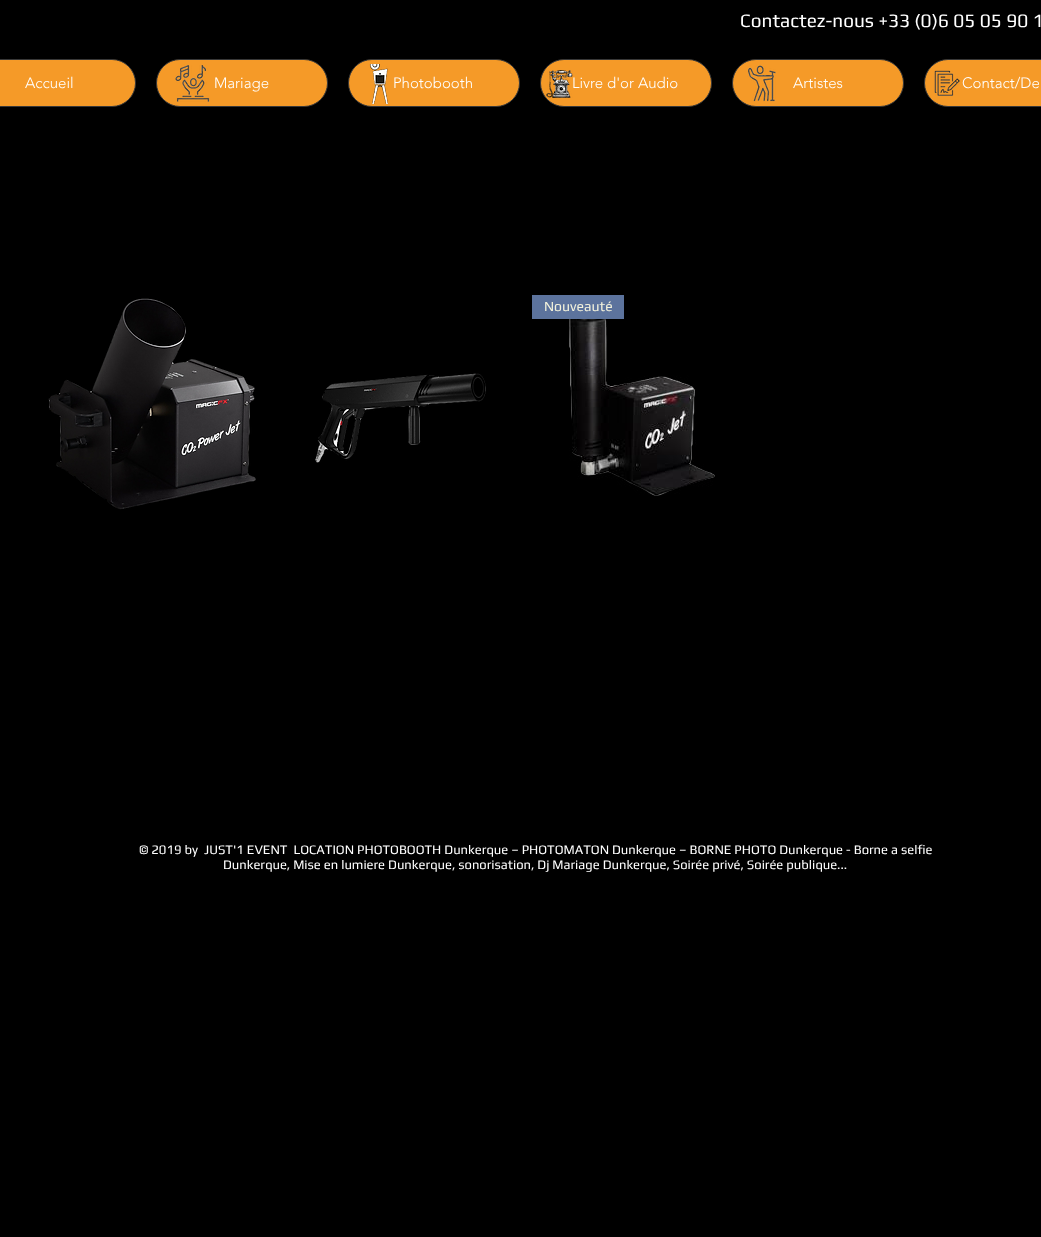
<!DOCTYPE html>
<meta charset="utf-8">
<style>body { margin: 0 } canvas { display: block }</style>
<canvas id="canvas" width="1041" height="1237"></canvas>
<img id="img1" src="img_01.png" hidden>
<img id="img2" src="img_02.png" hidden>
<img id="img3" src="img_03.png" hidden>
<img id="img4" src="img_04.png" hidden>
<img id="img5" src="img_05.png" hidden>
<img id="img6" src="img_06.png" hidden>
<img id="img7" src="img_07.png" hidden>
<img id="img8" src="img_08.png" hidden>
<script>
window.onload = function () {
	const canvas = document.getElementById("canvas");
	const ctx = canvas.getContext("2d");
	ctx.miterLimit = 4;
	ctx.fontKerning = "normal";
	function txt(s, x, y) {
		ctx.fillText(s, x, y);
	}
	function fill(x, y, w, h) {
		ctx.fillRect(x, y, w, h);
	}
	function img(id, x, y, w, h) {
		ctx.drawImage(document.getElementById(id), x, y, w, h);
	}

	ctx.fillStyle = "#000000";
	fill(0, 0, 1041, 1237);
	ctx.fillStyle = "#F59A28";
	ctx.beginPath();
	ctx.roundRect(156.5, 59.5, 171, 47, 23.5);
	ctx.fill();
	ctx.strokeStyle = "#383838";
	ctx.stroke();
	img("img1", 175, 64, 35, 38);
	ctx.beginPath();
	ctx.roundRect(348.5, 59.5, 171, 47, 23.5);
	ctx.fill();
	ctx.stroke();
	img("img2", 369, 64, 20, 40);
	ctx.beginPath();
	ctx.roundRect(540.5, 59.5, 171, 47, 23.5);
	ctx.fill();
	ctx.stroke();
	img("img3", 546, 70, 27, 28);
	ctx.beginPath();
	ctx.roundRect(732.5, 59.5, 171, 47, 23.5);
	ctx.fill();
	ctx.stroke();
	img("img4", 747, 65, 29, 37);
	ctx.beginPath();
	ctx.roundRect(924.5, 59.5, 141, 47, 23.5);
	ctx.fill();
	ctx.stroke();
	img("img5", 934, 70, 26, 26);
	ctx.beginPath();
	ctx.roundRect(-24.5, 59.5, 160, 47, 23.5);
	ctx.fill();
	ctx.stroke();
	img("img6", 48, 298, 208, 212);
	ctx.fillStyle = "#5C739D";
	fill(532, 295, 92, 24);
	img("img7", 569, 319, 146, 177);
	img("img8", 315, 373, 171, 90);
	ctx.font = "19px Play";
	ctx.fillStyle = "#FFFFFF";
	txt("Contactez-nous +33 (0)6 05 05 90 1", 740, 27);
	ctx.font = "300 15px 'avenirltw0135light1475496'";
	txt("Accueil", 25, 88);
	txt("Mariage", 214, 88);
	txt("Photobooth", 393, 88);
	txt("Livre d'or Audio", 572, 88);
	txt("Artistes", 793, 88);
	txt("Contact/De", 962, 88);
	ctx.font = "14px Play";
	ctx.fillStyle = "#F3F2DC";
	txt("Nouveauté", 544, 311);
	ctx.font = "13px Play";
	ctx.fillStyle = "#FFFFFF";
	txt("© 2019 by  JUST'1 EVENT  LOCATION PHOTOBOOTH Dunkerque – PHOTOMATON Dunkerque – BORNE PHOTO Dunkerque - Borne a selfie", 139, 854);
	txt("Dunkerque, Mise en lumiere Dunkerque, sonorisation, Dj Mariage Dunkerque, Soirée privé, Soirée publique...", 223, 869);
};
</script>
